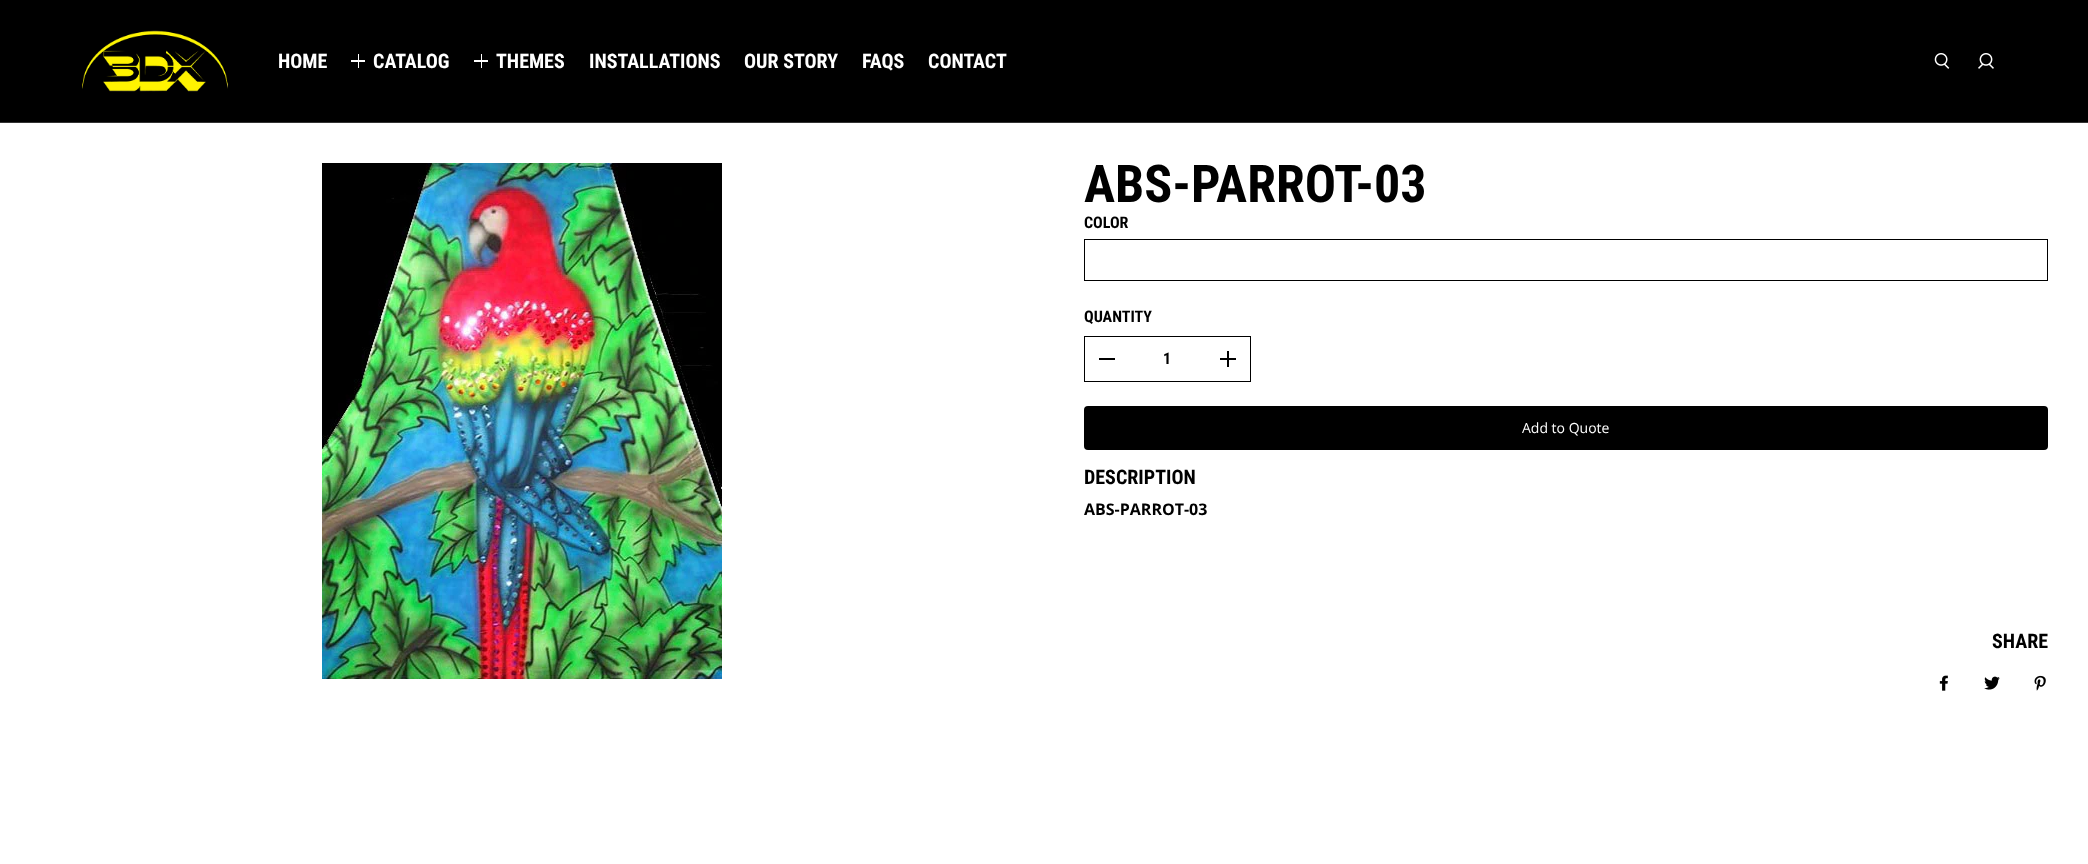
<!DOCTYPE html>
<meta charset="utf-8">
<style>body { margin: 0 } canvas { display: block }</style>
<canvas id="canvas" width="2088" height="864"></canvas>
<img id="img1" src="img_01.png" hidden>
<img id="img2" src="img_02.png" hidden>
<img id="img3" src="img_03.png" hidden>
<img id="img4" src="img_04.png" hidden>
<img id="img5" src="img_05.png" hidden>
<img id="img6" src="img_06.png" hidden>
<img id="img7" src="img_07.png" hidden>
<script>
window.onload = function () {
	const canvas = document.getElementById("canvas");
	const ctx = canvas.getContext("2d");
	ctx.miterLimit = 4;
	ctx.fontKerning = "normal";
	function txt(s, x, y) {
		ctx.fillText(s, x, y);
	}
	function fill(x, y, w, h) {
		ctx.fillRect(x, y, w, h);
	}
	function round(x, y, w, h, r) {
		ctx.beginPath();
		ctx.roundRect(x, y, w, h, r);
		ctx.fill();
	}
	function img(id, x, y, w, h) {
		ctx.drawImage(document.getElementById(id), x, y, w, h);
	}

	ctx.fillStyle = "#FFFFFF";
	fill(0, 0, 2088, 864);
	ctx.fillStyle = "#000000";
	fill(0, 0, 2088, 122);
	ctx.fillStyle = "#333333";
	fill(0, 122, 2088, 1);
	img("img1", 82, 30, 146, 62);
	ctx.fillStyle = "#FFFFFF";
	fill(351, 60, 14, 2);
	fill(358, 54, 1, 14);
	fill(474, 60, 14, 2);
	fill(481, 54, 1, 14);
	img("img2", 1934, 53, 16, 16);
	img("img3", 1978, 53, 16, 16);
	img("img4", 322, 163, 400, 516);
	ctx.strokeStyle = "#000000";
	ctx.strokeRect(1084.5, 239.5, 963, 41);
	ctx.strokeRect(1084.5, 336.5, 166, 45);
	ctx.fillStyle = "#000000";
	fill(1099, 358, 16, 2);
	fill(1220, 358, 16, 2);
	fill(1227, 351, 2, 16);
	round(1084, 406, 964, 44, 4);
	img("img5", 1939, 675, 9, 16);
	img("img6", 1984, 676, 16, 14);
	img("img7", 2034, 675, 12, 16);
	ctx.font = "bold 20px Roboto Condensed";
	ctx.fillStyle = "#FFFFFF";
	txt("HOME", 278, 68);
	txt("CATALOG", 373, 68);
	txt("THEMES", 496, 68);
	txt("INSTALLATIONS", 589, 68);
	txt("OUR STORY", 744, 68);
	txt("FAQS", 862, 68);
	txt("CONTACT", 928, 68);
	ctx.font = "bold 52px Roboto Condensed";
	ctx.fillStyle = "#000000";
	txt("ABS-PARROT-03", 1084, 202);
	ctx.font = "bold 16px Roboto Condensed";
	txt("COLOR", 1084, 228);
	txt("QUANTITY", 1084, 322);
	txt("1", 1163, 364);
	ctx.font = "14px Open Sans";
	ctx.fillStyle = "#FFFFFF";
	txt("Add to Quote", 1522, 433);
	ctx.font = "bold 20px Roboto Condensed";
	ctx.fillStyle = "#000000";
	txt("DESCRIPTION", 1084, 484);
	ctx.font = "bold 16px Open Sans";
	txt("ABS-PARROT-03", 1084, 515);
	ctx.font = "bold 20px Roboto Condensed";
	txt("SHARE", 1992, 648);
};
</script>
